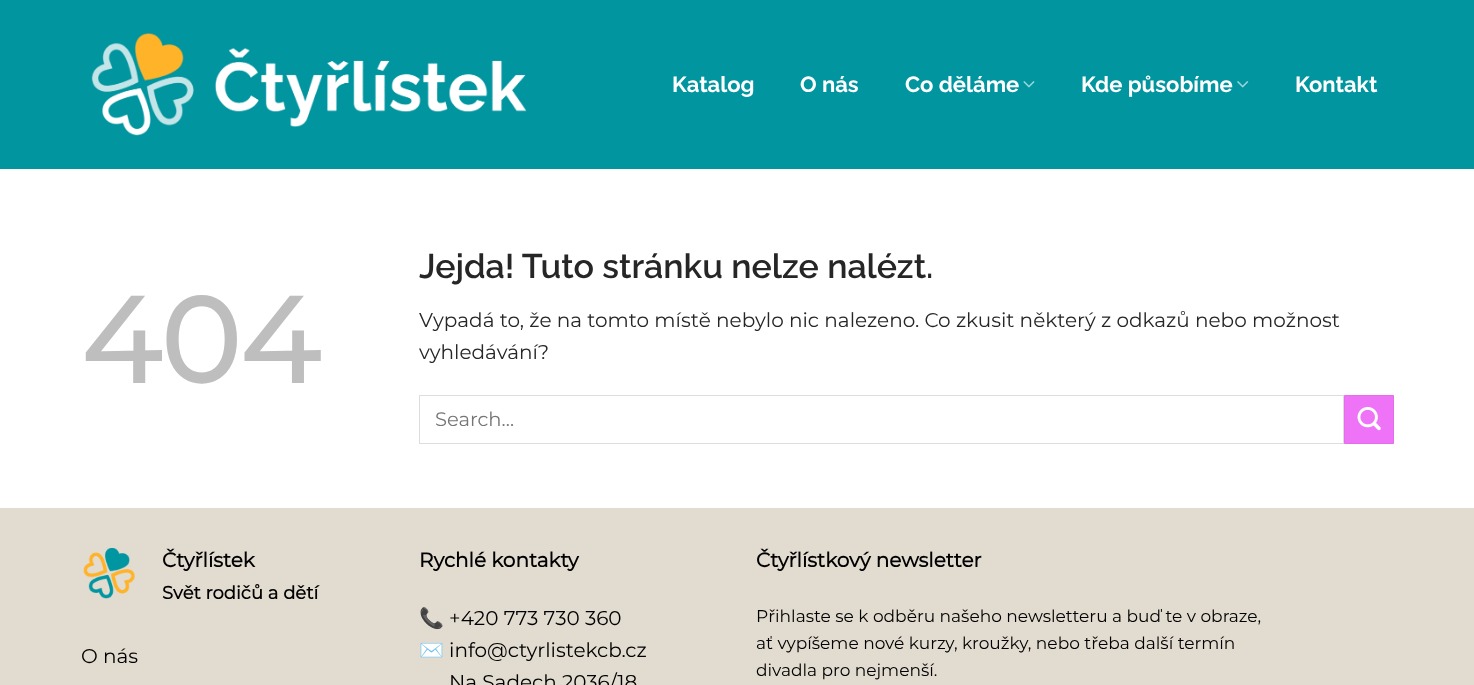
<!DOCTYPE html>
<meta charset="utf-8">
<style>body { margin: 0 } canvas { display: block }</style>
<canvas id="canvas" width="1474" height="685"></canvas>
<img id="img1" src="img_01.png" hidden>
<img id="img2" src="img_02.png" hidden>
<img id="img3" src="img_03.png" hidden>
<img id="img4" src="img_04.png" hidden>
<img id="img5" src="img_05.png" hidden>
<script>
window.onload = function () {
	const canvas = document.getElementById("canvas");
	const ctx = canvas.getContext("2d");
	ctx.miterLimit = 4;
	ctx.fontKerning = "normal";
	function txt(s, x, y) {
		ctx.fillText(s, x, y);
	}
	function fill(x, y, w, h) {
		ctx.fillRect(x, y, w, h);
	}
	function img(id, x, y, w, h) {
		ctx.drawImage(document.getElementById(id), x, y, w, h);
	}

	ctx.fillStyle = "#FFFFFF";
	fill(0, 0, 1474, 685);
	ctx.fillStyle = "#0195A0";
	fill(0, 0, 1474, 169);
	img("img1", 91, 33, 436, 103);
	img("img2", 1023, 81, 12, 7);
	img("img3", 1237, 81, 12, 7);
	ctx.strokeStyle = "#DDDDDD";
	ctx.strokeRect(419.5, 395.5, 924, 48);
	ctx.fillStyle = "#EF73F6";
	ctx.beginPath();
	ctx.rect(1344.5, 395.5, 49, 48);
	ctx.fill();
	ctx.strokeStyle = "#E36DEA";
	ctx.stroke();
	img("img4", 1357, 406, 24, 25);
	ctx.fillStyle = "#E2DBD0";
	fill(0, 508, 1474, 177);
	img("img5", 83, 547, 52, 52);
	ctx.font = "bold 22px Raleway";
	ctx.fillStyle = "#FFFFFF";
	txt("Katalog", 672, 92);
	txt("O nás", 800, 92);
	txt("Co děláme", 905, 92);
	txt("Kde působíme", 1081, 92);
	txt("Kontakt", 1295, 92);
	ctx.font = "bold 120px Montserrat";
	ctx.fillStyle = "#BEBEBE";
	txt("404", 81, 383);
	ctx.font = "600 34px Raleway";
	ctx.fillStyle = "#262626";
	txt("Jejda! Tuto stránku nelze nalézt.", 419, 278);
	ctx.font = "100 20px Montserrat";
	txt("Vypadá to, že na tomto místě nebylo nic nalezeno. Co zkusit některý z odkazů nebo možnost", 419, 327);
	txt("vyhledávání?", 419, 359);
	ctx.font = "100 19.5px Montserrat";
	ctx.fillStyle = "#757575";
	txt("Search…", 435, 426);
	ctx.font = "bold 20px Montserrat";
	ctx.fillStyle = "#000000";
	txt("Čtyřlístek", 162, 567);
	ctx.font = "bold 18px Montserrat";
	txt("Svět rodičů a dětí", 162, 599);
	ctx.font = "100 20px Montserrat";
	txt("O nás", 81, 663);
	ctx.font = "bold 20px Montserrat";
	txt("Rychlé kontakty", 419, 567);
	ctx.font = "20px Noto Color Emoji";
	txt("📞", 419, 625);
	ctx.font = "100 20px Montserrat";
	txt("+420 773 730 360", 449, 625);
	ctx.font = "20px Noto Color Emoji";
	txt("✉️", 419, 657);
	ctx.font = "100 20px Montserrat";
	txt("info@ctyrlistekcb.cz", 449, 657);
	txt("Na Sadech 2036/18", 449, 689);
	ctx.font = "bold 20px Montserrat";
	txt("Čtyřlístkový newsletter", 756, 567);
	ctx.font = "100 17px Montserrat";
	txt("Přihlaste se k odběru našeho newsletteru a buď te v obraze,", 756, 622);
	txt("ať vypíšeme nové kurzy, kroužky, nebo třeba další termín", 756, 649);
	txt("divadla pro nejmenší.", 756, 676);
};
</script>
